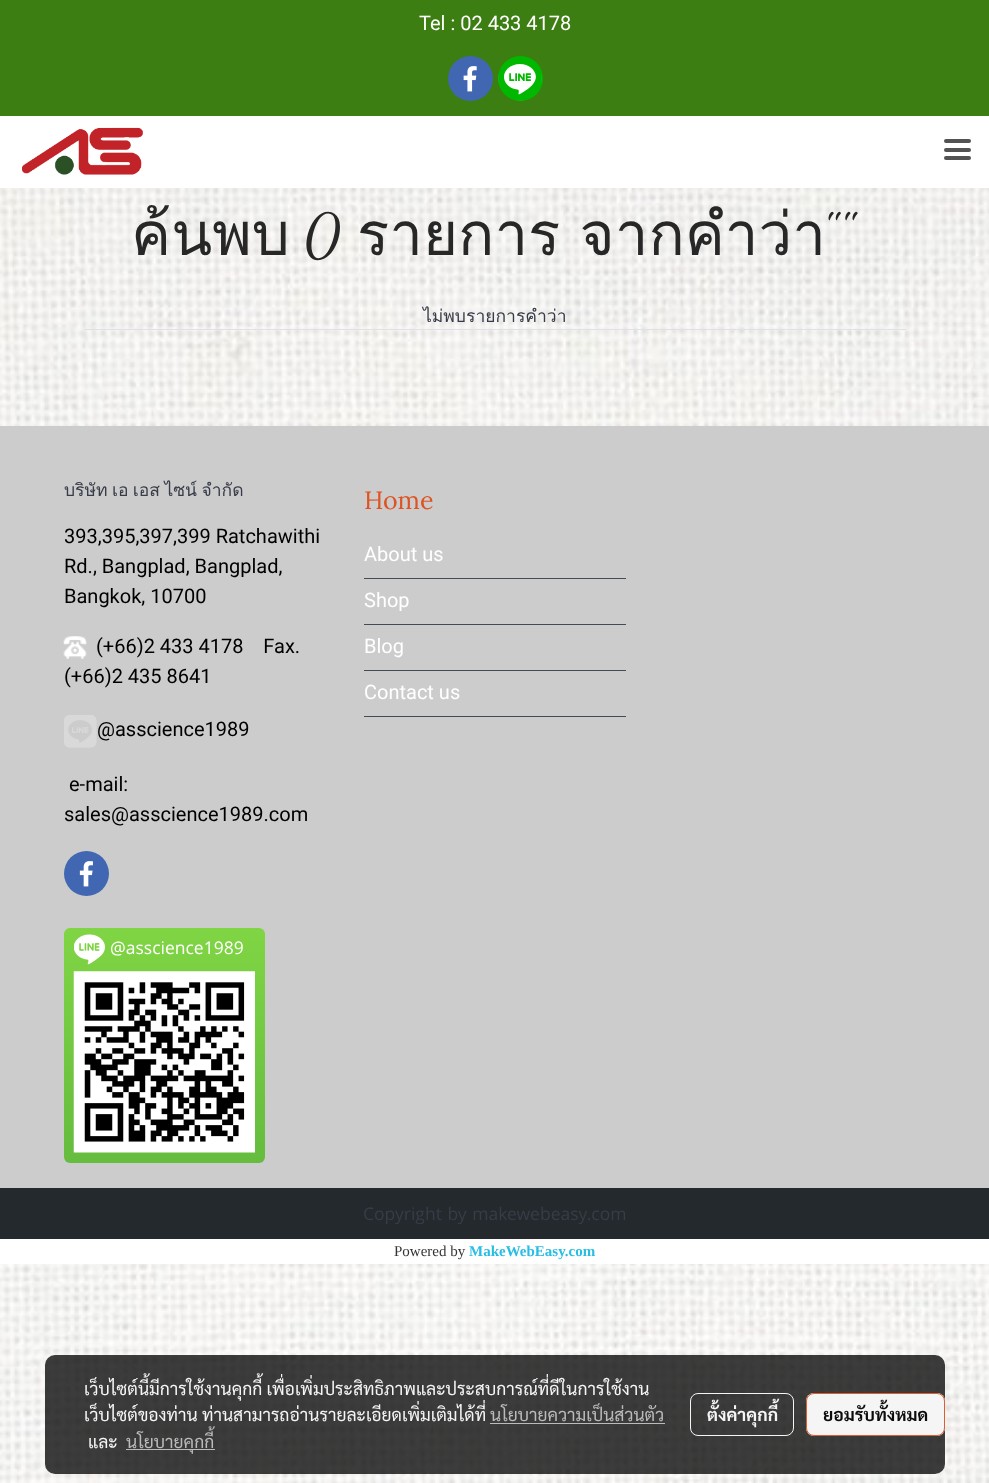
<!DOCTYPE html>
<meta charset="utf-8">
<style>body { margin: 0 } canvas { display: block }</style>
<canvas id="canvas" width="989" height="1483"></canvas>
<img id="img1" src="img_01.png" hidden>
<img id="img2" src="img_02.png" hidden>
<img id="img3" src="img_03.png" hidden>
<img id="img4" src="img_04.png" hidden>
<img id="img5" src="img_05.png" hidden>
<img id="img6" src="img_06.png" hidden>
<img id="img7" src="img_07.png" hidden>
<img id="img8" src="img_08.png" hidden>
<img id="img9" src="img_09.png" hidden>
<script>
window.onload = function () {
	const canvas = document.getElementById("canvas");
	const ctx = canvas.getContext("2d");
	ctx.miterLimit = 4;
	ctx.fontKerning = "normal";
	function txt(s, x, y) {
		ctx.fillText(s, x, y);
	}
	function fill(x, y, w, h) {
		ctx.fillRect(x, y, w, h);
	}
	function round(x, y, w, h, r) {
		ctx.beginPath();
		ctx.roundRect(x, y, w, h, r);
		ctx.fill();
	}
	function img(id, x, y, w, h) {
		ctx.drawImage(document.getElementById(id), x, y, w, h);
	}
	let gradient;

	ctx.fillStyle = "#FFFFFF";
	fill(0, 0, 989, 1483);
	img("img1", 0, 188, 989, 1295);
	ctx.fillStyle = "#3D7E12";
	fill(0, 0, 989, 116);
	ctx.fillStyle = "#4267B2";
	ctx.beginPath();
	ctx.arc(470.5, 78.5, 22.5, 0, Math.PI * 2);
	ctx.fill();
	img("img2", 463, 66, 14, 26);
	ctx.fillStyle = "#00B800";
	ctx.beginPath();
	ctx.arc(520.5, 78.5, 22.5, 0, Math.PI * 2);
	ctx.fill();
	img("img3", 498, 64, 44, 37);
	img("img4", 22, 127, 121, 48);
	ctx.fillStyle = "#535353";
	round(944, 148, 27, 4, 2);
	round(944, 139, 27, 4, 2);
	round(944, 156, 27, 4, 2);
	ctx.fillStyle = "#DEE2E6";
	fill(84, 329, 822, 1);
	ctx.fillStyle = "#CCCCCC";
	fill(0, 426, 989, 762);
	img("img5", 63, 636, 24, 23);
	img("img6", 64, 715, 33, 33);
	ctx.fillStyle = "#4267B2";
	ctx.beginPath();
	ctx.arc(86.5, 873.5, 22.5, 0, Math.PI * 2);
	ctx.fill();
	img("img7", 79, 861, 14, 26);
	gradient = ctx.createLinearGradient(164, 928, 164, 1163);
	gradient.addColorStop(0, "#80D544");
	gradient.addColorStop(1, "#65BC3E");
	ctx.fillStyle = gradient;
	round(64, 928, 201, 235, 6);
	img("img8", 74, 934, 31, 31);
	img("img9", 73, 971, 182, 182);
	ctx.fillStyle = "#424D51";
	fill(364, 578, 262, 1);
	fill(364, 624, 262, 1);
	fill(364, 670, 262, 1);
	fill(364, 716, 262, 1);
	ctx.fillStyle = "#23292C";
	fill(0, 1188, 989, 51);
	ctx.fillStyle = "#FFFFFF";
	fill(0, 1239, 989, 25);
	ctx.fillStyle = "rgba(0, 0, 0, 0.76)";
	round(45, 1355, 900, 119, 10);
	ctx.fillStyle = "rgba(194, 194, 194, 0.95)";
	fill(490, 1423, 175, 1);
	fill(126, 1449, 89, 1);
	ctx.beginPath();
	ctx.roundRect(690.5, 1393.5, 103, 42, 7.5);
	ctx.strokeStyle = "rgba(255, 255, 255, 0.95)";
	ctx.stroke();
	ctx.fillStyle = "rgba(255, 255, 255, 0.95)";
	round(806, 1393, 139, 43, 8);
	ctx.beginPath();
	ctx.roundRect(806.5, 1393.5, 138, 42, 7.5);
	ctx.strokeStyle = "rgba(222, 83, 35, 0.95)";
	ctx.stroke();
	ctx.font = "20px Roboto";
	ctx.fillStyle = "#FFFFFF";
	txt("Tel : 02 433 4178", 419, 30);
	ctx.font = "60px Loma";
	ctx.fillStyle = "#272727";
	txt("ค้นพบ", 131, 255);
	ctx.font = "60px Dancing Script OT";
	txt("0", 305, 255);
	ctx.wordSpacing = "-1px";
	ctx.font = "60px Loma";
	txt("รายการ จากคำว่า", 357, 255);
	ctx.wordSpacing = "0px";
	ctx.font = "60px Dancing Script OT";
	txt("\"\"", 826, 255);
	ctx.font = "17.5px Loma";
	ctx.fillStyle = "#373C48";
	txt("ไม่พบรายการคำว่า", 423, 322);
	ctx.wordSpacing = "-1.5px";
	txt("บริษัท เอ เอส ไซน์ จำกัด", 64, 496);
	ctx.wordSpacing = "0px";
	ctx.font = "20px Roboto";
	ctx.fillStyle = "#000000";
	txt("393,395,397,399 Ratchawithi", 64, 543);
	txt("Rd., Bangplad, Bangplad,", 64, 573);
	txt("Bangkok, 10700", 64, 603);
	txt("(+66)2 433 4178    Fax.", 96, 653);
	txt("(+66)2 435 8641", 64, 683);
	txt("@asscience1989", 97, 736);
	txt("e-mail:", 69, 791);
	txt("sales@asscience1989.com", 64, 821);
	ctx.font = "17.5px Open Sans";
	ctx.fillStyle = "#FFFFFF";
	txt("@asscience1989", 110, 954);
	ctx.font = "25px Lora";
	ctx.fillStyle = "#DE5321";
	txt("Home", 364, 509);
	ctx.font = "20px Roboto";
	ctx.fillStyle = "#FFFFFF";
	txt("About us", 364, 561);
	txt("Shop", 364, 607);
	txt("Blog", 364, 653);
	txt("Contact us", 364, 699);
	ctx.wordSpacing = "1px";
	ctx.font = "17.5px Open Sans";
	ctx.fillStyle = "#373C48";
	txt("Copyright by makewebeasy.com", 363, 1220);
	ctx.wordSpacing = "0px";
	ctx.font = "15px Liberation Serif";
	ctx.fillStyle = "#353535";
	txt("Powered by", 394, 1256);
	ctx.font = "bold 15px Liberation Serif";
	ctx.fillStyle = "#28BEE3";
	txt("MakeWebEasy.com", 469, 1256);
	ctx.font = "17.5px Sarabun";
	ctx.fillStyle = "#F5F5F5";
	txt("เว็บไซต์นี้มีการใช้งานคุกกี้ เพื่อเพิ่มประสิทธิภาพและประสบการณ์ที่ดีในการใช้งาน", 84, 1395);
	txt("เว็บไซต์ของท่าน ท่านสามารถอ่านรายละเอียดเพิ่มเติมได้ที่", 84, 1421);
	ctx.fillStyle = "#BBBBBB";
	txt("นโยบายความเป็นส่วนตัว", 490, 1421);
	ctx.fillStyle = "#F5F5F5";
	txt("และ", 88, 1448);
	ctx.fillStyle = "#BBBBBB";
	txt("นโยบายคุกกี้", 126, 1448);
	ctx.font = "bold 17.5px Sarabun";
	ctx.fillStyle = "#F5F5F5";
	txt("ตั้งค่าคุกกี้", 707, 1421);
	ctx.fillStyle = "#0C0C0C";
	txt("ยอมรับทั้งหมด", 823, 1421);
};
</script>
